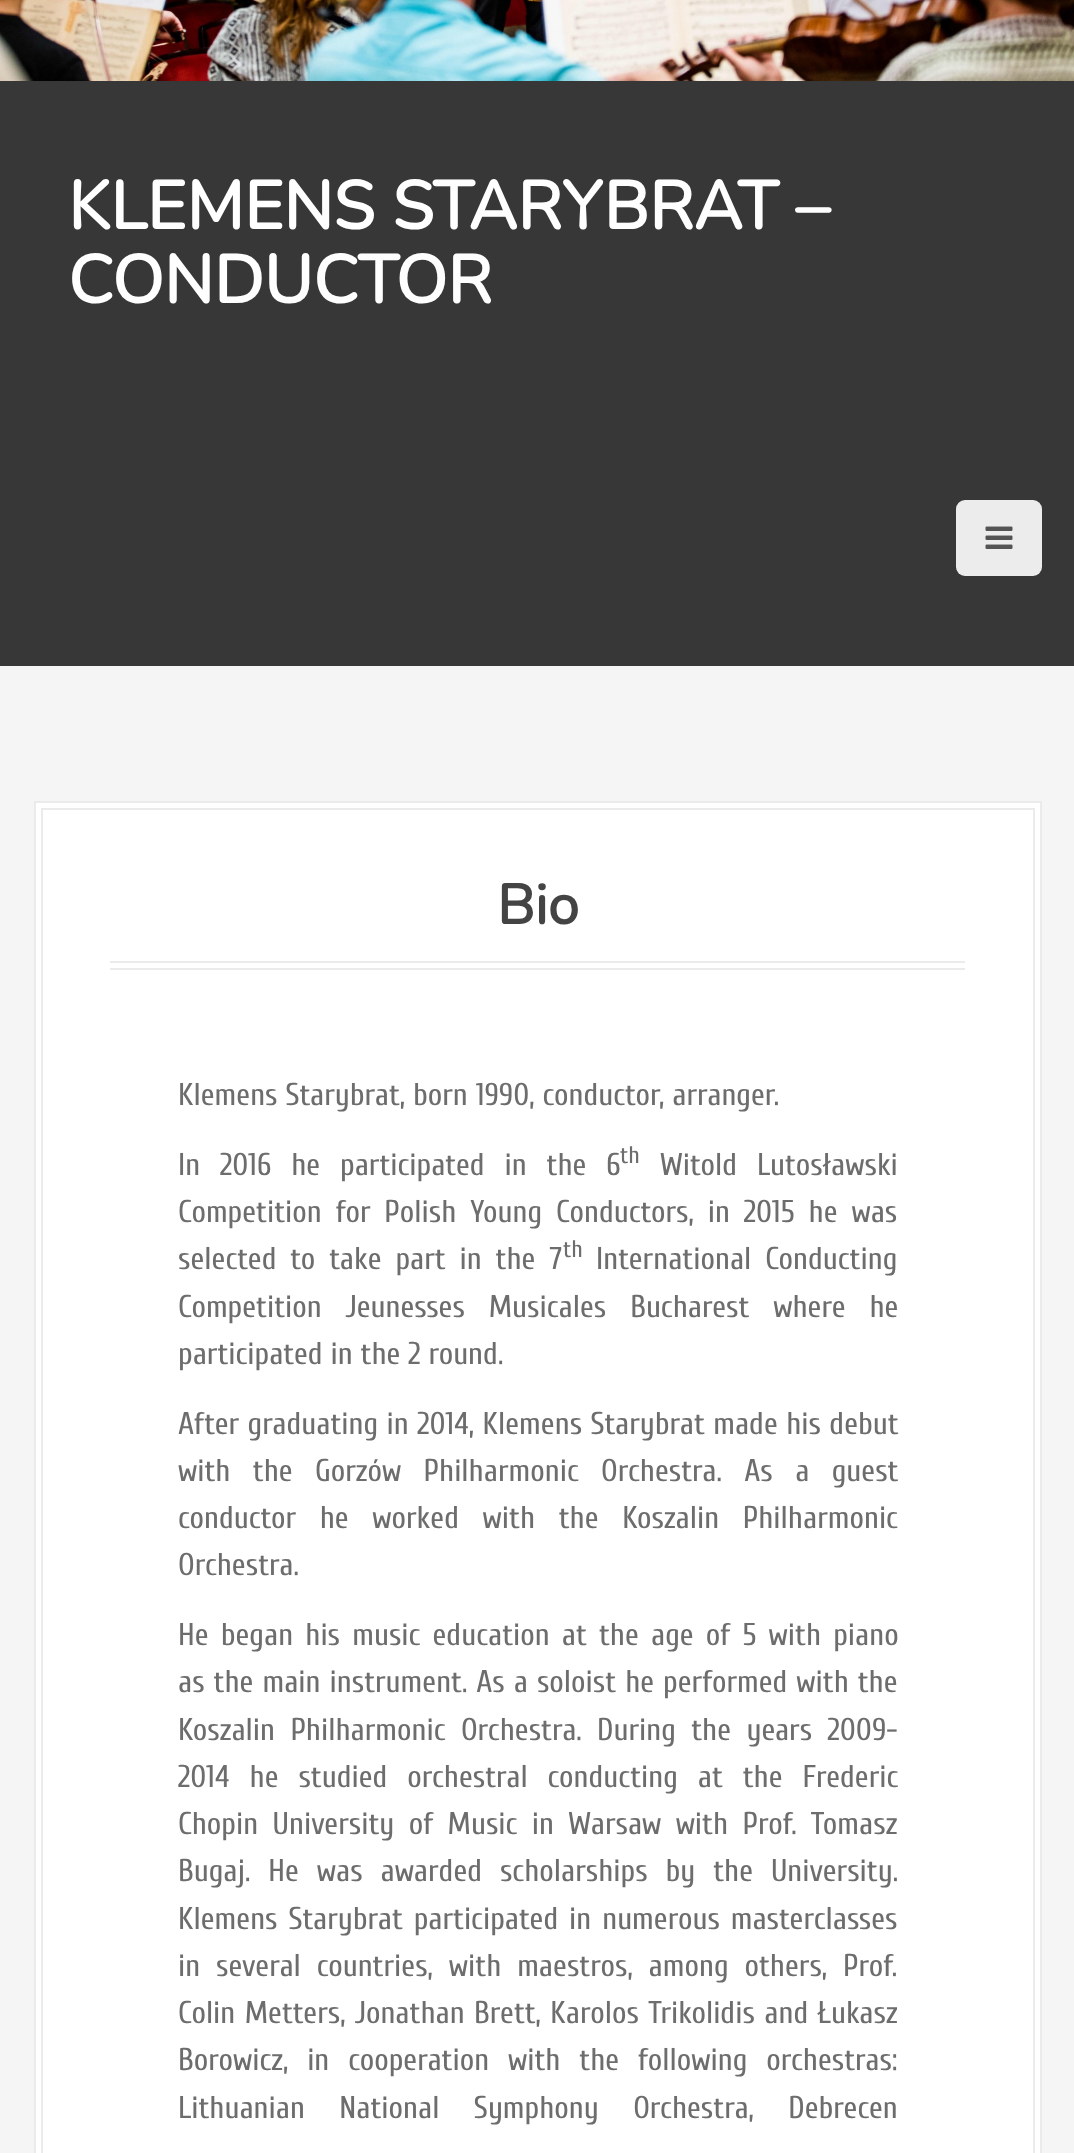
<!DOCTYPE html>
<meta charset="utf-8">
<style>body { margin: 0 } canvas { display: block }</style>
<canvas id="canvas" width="1074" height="2153"></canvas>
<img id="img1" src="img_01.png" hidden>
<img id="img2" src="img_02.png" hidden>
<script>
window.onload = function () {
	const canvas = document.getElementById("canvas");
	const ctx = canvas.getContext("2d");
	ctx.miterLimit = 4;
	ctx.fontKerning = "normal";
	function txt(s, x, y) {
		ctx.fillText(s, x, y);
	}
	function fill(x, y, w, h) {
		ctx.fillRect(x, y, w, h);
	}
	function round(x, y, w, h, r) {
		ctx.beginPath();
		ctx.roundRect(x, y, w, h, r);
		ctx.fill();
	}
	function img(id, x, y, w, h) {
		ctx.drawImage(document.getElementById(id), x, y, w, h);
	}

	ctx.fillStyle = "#F5F5F5";
	fill(0, 0, 1074, 2153);
	img("img1", 0, 0, 1074, 82);
	ctx.fillStyle = "rgba(34, 34, 34, 0.9)";
	fill(0, 81, 1074, 585);
	ctx.fillStyle = "#ECECEC";
	round(956, 500, 86, 76, 9);
	img("img2", 985, 526, 28, 23);
	ctx.fillStyle = "#FFFFFF";
	ctx.beginPath();
	ctx.rect(35, 802, 1006, 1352);
	ctx.fill();
	ctx.strokeStyle = "#EBEBEB";
	ctx.lineWidth = 2;
	ctx.stroke();
	ctx.strokeRect(42, 809, 992, 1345);
	ctx.fillStyle = "#EBEBEB";
	fill(110, 961, 855, 2);
	fill(110, 968, 855, 2);
	ctx.font = "bold 67.5px Nunito";
	ctx.fillStyle = "#FEFEFE";
	txt("KLEMENS STARYBRAT –", 68, 229);
	txt("CONDUCTOR", 68, 303);
	ctx.font = "bold 56px Nunito";
	ctx.fillStyle = "#444444";
	txt("Bio", 497, 924);
	ctx.font = "31.5px Cuprum";
	ctx.fillStyle = "#6D6D6D";
	txt("Klemens Starybrat, born 1990, conductor, arranger.", 178, 1105);
	ctx.wordSpacing = "12px";
	txt("In 2016 he participated in the 6", 178, 1175);
	ctx.wordSpacing = "0px";
	ctx.font = "24px Cuprum";
	txt("th", 620, 1163);
	ctx.wordSpacing = "12px";
	ctx.font = "31.5px Cuprum";
	txt("Witold Lutosławski", 660, 1175);
	ctx.wordSpacing = "6px";
	txt("Competition for Polish Young Conductors, in 2015 he was", 178, 1222);
	txt("selected to take part in the 7", 178, 1269);
	ctx.wordSpacing = "0px";
	ctx.font = "24px Cuprum";
	txt("th", 563, 1257);
	ctx.wordSpacing = "6px";
	ctx.font = "31.5px Cuprum";
	txt("International Conducting", 596, 1269);
	ctx.wordSpacing = "16px";
	txt("Competition Jeunesses Musicales Bucharest where he", 178, 1317);
	ctx.wordSpacing = "0px";
	txt("participated in the 2 round.", 178, 1364);
	ctx.wordSpacing = "0.5px";
	txt("After graduating in 2014, Klemens Starybrat made his debut", 178, 1434);
	ctx.wordSpacing = "14.5px";
	txt("with the Gorzów Philharmonic Orchestra. As a guest", 178, 1481);
	ctx.wordSpacing = "15.75px";
	txt("conductor he worked with the Koszalin Philharmonic", 178, 1528);
	ctx.wordSpacing = "0px";
	txt("Orchestra.", 178, 1575);
	ctx.wordSpacing = "4.25px";
	txt("He began his music education at the age of 5 with piano", 178, 1645);
	ctx.wordSpacing = "1.1px";
	txt("as the main instrument. As a soloist he performed with the", 178, 1692);
	ctx.wordSpacing = "7.5px";
	txt("Koszalin Philharmonic Orchestra. During the years 2009-", 178, 1740);
	ctx.wordSpacing = "12px";
	txt("2014 he studied orchestral conducting at the Frederic", 178, 1787);
	ctx.wordSpacing = "6.5px";
	txt("Chopin University of Music in Warsaw with Prof. Tomasz", 178, 1834);
	ctx.wordSpacing = "10px";
	txt("Bugaj. He was awarded scholarships by the University.", 178, 1881);
	ctx.wordSpacing = "3px";
	txt("Klemens Starybrat participated in numerous masterclasses", 178, 1929);
	ctx.wordSpacing = "8px";
	txt("in several countries, with maestros, among others, Prof.", 178, 1976);
	ctx.wordSpacing = "1.5px";
	txt("Colin Metters, Jonathan Brett, Karolos Trikolidis and Łukasz", 178, 2023);
	ctx.wordSpacing = "11px";
	txt("Borowicz, in cooperation with the following orchestras:", 178, 2070);
	ctx.wordSpacing = "26.5px";
	txt("Lithuanian National Symphony Orchestra, Debrecen", 178, 2118);
};
</script>
